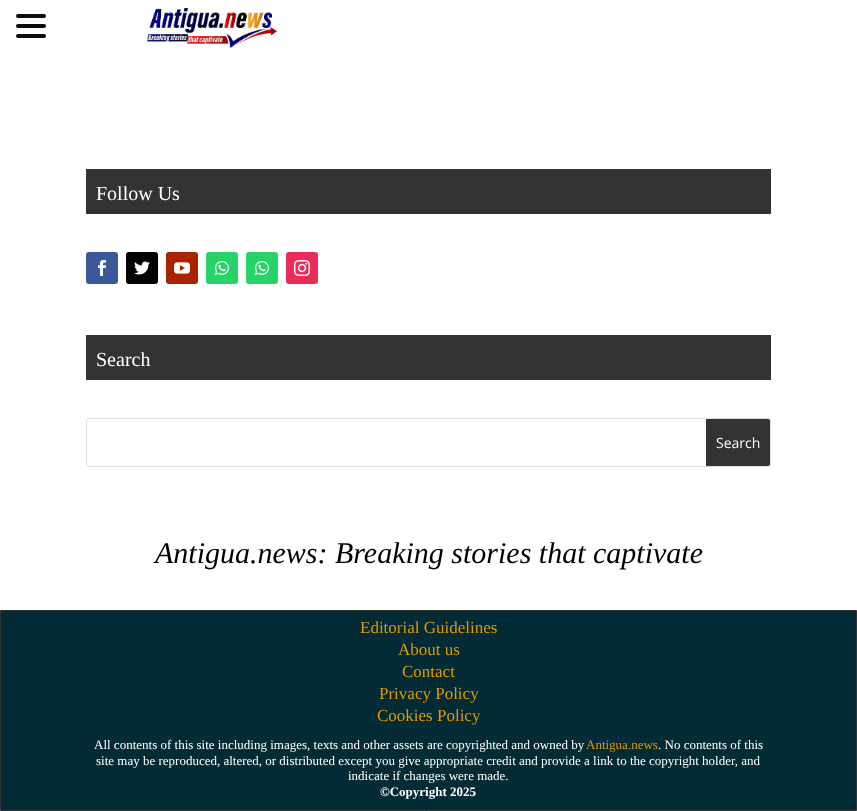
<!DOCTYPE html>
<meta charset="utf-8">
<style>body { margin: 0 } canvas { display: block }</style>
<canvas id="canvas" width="857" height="811"></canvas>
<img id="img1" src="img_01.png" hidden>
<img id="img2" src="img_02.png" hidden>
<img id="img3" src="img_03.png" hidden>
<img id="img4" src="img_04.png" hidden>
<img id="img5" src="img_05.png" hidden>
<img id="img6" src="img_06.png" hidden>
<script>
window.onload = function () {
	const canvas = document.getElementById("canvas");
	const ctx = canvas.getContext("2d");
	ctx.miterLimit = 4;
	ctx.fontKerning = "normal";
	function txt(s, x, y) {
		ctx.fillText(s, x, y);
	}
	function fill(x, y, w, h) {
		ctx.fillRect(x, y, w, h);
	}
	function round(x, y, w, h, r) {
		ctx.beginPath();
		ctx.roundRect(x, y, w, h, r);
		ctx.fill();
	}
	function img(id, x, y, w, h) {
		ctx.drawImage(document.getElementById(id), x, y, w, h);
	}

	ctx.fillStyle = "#FFFFFF";
	fill(0, 0, 857, 811);
	ctx.fillStyle = "#0C0C0C";
	round(16, 14, 30, 4, 2);
	round(16, 24, 30, 4, 2);
	round(16, 34, 30, 4, 2);
	img("img1", 147, 8, 130, 40);
	ctx.fillStyle = "#333333";
	fill(86, 169, 685, 45);
	ctx.fillStyle = "#3B5998";
	round(86, 252, 32, 32, 3);
	img("img2", 98, 260, 8, 16);
	ctx.fillStyle = "#000000";
	round(126, 252, 32, 32, 3);
	img("img3", 134, 261, 16, 14);
	ctx.fillStyle = "#A82400";
	round(166, 252, 32, 32, 3);
	img("img4", 174, 262, 16, 12);
	ctx.fillStyle = "#25D366";
	round(206, 252, 32, 32, 3);
	img("img5", 215, 261, 14, 14);
	round(246, 252, 32, 32, 3);
	img("img5", 255, 261, 14, 14);
	ctx.fillStyle = "#EA2C59";
	round(286, 252, 32, 32, 3);
	img("img6", 294, 260, 16, 16);
	ctx.fillStyle = "#333333";
	fill(86, 335, 685, 45);
	ctx.beginPath();
	ctx.roundRect(86.5, 418.5, 684, 48, 2.5);
	ctx.strokeStyle = "#DDDDDD";
	ctx.stroke();
	ctx.beginPath();
	ctx.roundRect(706, 419, 64, 47, [0, 2, 2, 0]);
	ctx.fill();
	ctx.fillStyle = "#032B35";
	ctx.beginPath();
	ctx.rect(0.5, 610.5, 856, 200);
	ctx.fill();
	ctx.strokeStyle = "#333333";
	ctx.stroke();
	ctx.font = "20px Liberation Serif";
	ctx.fillStyle = "#FFFFFF";
	txt("Follow Us", 96, 200);
	txt("Search", 96, 366);
	ctx.font = "14px Open Sans";
	txt("Search", 716, 448);
	ctx.font = "italic 30px Liberation Serif";
	ctx.fillStyle = "#000000";
	txt("Antigua.news: Breaking stories that captivate", 155, 563);
	ctx.font = "17px Liberation Serif";
	ctx.fillStyle = "#E09900";
	txt("Editorial Guidelines", 360, 633);
	txt("About us", 398, 655);
	txt("Contact", 402, 677);
	txt("Privacy Policy", 379, 699);
	txt("Cookies Policy", 377, 721);
	ctx.font = "13px Liberation Serif";
	ctx.fillStyle = "#FFFFFF";
	txt("All contents of this site including images, texts and other assets are copyrighted and owned by", 94, 749);
	ctx.fillStyle = "#E09900";
	txt("Antigua.news", 586, 749);
	ctx.fillStyle = "#FFFFFF";
	txt(". No contents of this", 658, 749);
	txt("site may be reproduced, altered, or distributed except you give appropriate credit and provide a link to the copyright holder, and", 96, 765);
	txt("indicate if changes were made.", 348, 780);
	ctx.font = "bold 13px Liberation Serif";
	txt("©Copyright 2025", 380, 796);
};
</script>
